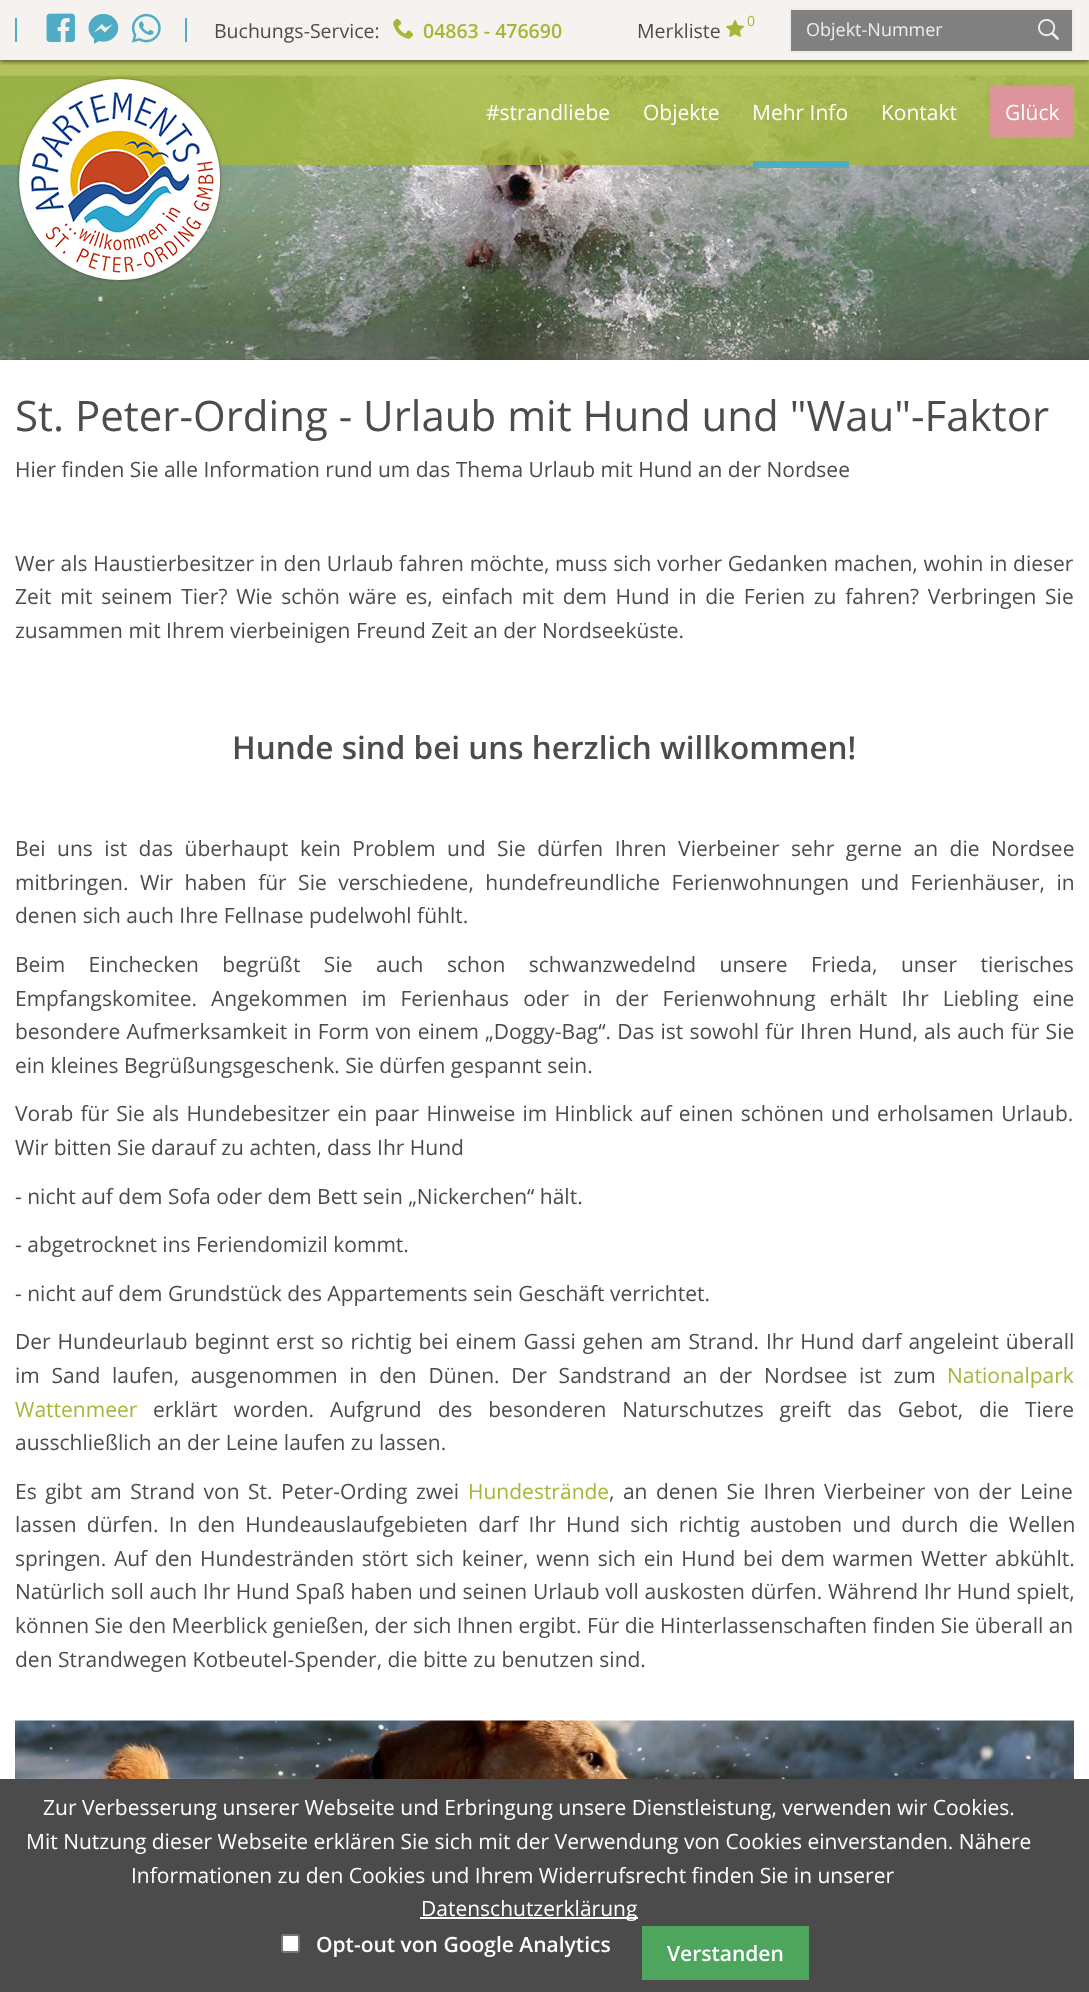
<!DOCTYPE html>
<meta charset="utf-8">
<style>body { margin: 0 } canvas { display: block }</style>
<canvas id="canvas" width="1089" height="1992"></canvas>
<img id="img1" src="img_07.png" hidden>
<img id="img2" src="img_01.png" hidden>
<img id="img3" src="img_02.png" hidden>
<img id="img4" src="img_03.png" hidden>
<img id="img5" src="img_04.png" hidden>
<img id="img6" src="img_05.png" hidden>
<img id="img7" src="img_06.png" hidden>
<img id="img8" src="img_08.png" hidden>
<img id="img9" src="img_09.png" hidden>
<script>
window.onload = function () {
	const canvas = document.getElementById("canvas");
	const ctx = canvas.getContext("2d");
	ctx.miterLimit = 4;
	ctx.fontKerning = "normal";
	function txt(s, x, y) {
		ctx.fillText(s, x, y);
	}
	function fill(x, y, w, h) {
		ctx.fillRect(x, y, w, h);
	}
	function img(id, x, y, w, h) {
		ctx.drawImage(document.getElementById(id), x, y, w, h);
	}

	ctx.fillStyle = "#F5F2EF";
	fill(0, 0, 1089, 1992);
	img("img1", 0, 75, 1089, 285);
	ctx.fillStyle = "rgba(163, 184, 55, 0.8)";
	fill(0, 60, 1089, 105);
	ctx.save();
	ctx.beginPath();
	ctx.rect(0, 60, 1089, 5);
	ctx.clip();
	ctx.fillStyle = "rgba(0, 0, 0, 0.5)";
	ctx.filter = "blur(2px)";
	ctx.beginPath();
	ctx.rect(0, 2, 1089, 60);
	ctx.fill();
	ctx.filter = "none";
	ctx.restore();
	ctx.fillStyle = "#4EACC5";
	fill(15, 18, 2, 24);
	img("img2", 46, 13, 29, 29);
	img("img3", 88, 13, 31, 31);
	img("img4", 131, 13, 30, 30);
	fill(185, 18, 2, 24);
	img("img5", 393, 18, 21, 21);
	img("img6", 726, 19, 19, 18);
	ctx.fillStyle = "#808080";
	ctx.beginPath();
	ctx.rect(790, 9, 283, 43);
	ctx.fill();
	ctx.strokeStyle = "#EDEDED";
	ctx.lineWidth = 2;
	ctx.stroke();
	img("img7", 1038, 19, 21, 21);
	img("img8", 17, 76, 206, 206);
	ctx.fillStyle = "#4EACC5";
	fill(753, 161, 96, 7);
	ctx.fillStyle = "#DD949B";
	fill(990, 86, 84, 52);
	ctx.fillStyle = "rgba(0, 0, 0, 0.3)";
	ctx.filter = "blur(4px)";
	ctx.beginPath();
	ctx.rect(0, 362, 1089, 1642);
	ctx.fill();
	ctx.filter = "none";
	ctx.fillStyle = "#FFFFFF";
	fill(0, 360, 1089, 1419);
	img("img9", 15, 1720, 1059, 59);
	ctx.fillStyle = "#4B4B4B";
	fill(0, 1779, 1089, 213);
	ctx.fillStyle = "#FFFFFF";
	fill(420, 1917, 218, 2);
	ctx.beginPath();
	ctx.roundRect(282, 1935, 17, 17, 2);
	ctx.fill();
	ctx.strokeStyle = "#767676";
	ctx.stroke();
	ctx.fillStyle = "#4EA55E";
	fill(642, 1926, 167, 54);
	ctx.font = "19.5px Open Sans";
	ctx.fillStyle = "#4C4C4C";
	txt("Buchungs-Service:", 214, 38);
	ctx.font = "600 19.5px Open Sans";
	ctx.fillStyle = "#A3B837";
	txt("04863 - 476690", 423, 38);
	ctx.font = "19.5px Open Sans";
	ctx.fillStyle = "#4C4C4C";
	txt("Merkliste", 637, 38);
	ctx.font = "14px Open Sans";
	ctx.fillStyle = "#A3B837";
	txt("0", 747, 26);
	ctx.font = "18px Open Sans";
	ctx.fillStyle = "#EDEDED";
	txt("Objekt-Nummer", 806, 36);
	ctx.font = "21px Open Sans";
	ctx.fillStyle = "#FFFFFF";
	txt("#strandliebe", 486, 120);
	txt("Objekte", 643, 120);
	txt("Mehr Info", 752, 120);
	txt("Kontakt", 881, 120);
	txt("Glück", 1005, 120);
	ctx.font = "42px Open Sans";
	ctx.fillStyle = "#4C4C4C";
	txt("St. Peter-Ording - Urlaub mit Hund und \"Wau\"-Faktor", 15, 431);
	ctx.font = "21px Open Sans";
	txt("Hier finden Sie alle Information rund um das Thema Urlaub mit Hund an der Nordsee", 15, 477);
	ctx.wordSpacing = "0.25px";
	txt("Wer als Haustierbesitzer in den Urlaub fahren möchte, muss sich vorher Gedanken machen, wohin in dieser", 15, 571);
	ctx.wordSpacing = "3.25px";
	txt("Zeit mit seinem Tier? Wie schön wäre es, einfach mit dem Hund in die Ferien zu fahren? Verbringen Sie", 15, 604);
	ctx.wordSpacing = "0px";
	txt("zusammen mit Ihrem vierbeinigen Freund Zeit an der Nordseeküste.", 15, 638);
	ctx.font = "600 31.5px Open Sans";
	txt("Hunde sind bei uns herzlich willkommen!", 232, 759);
	ctx.wordSpacing = "6px";
	ctx.font = "21px Open Sans";
	txt("Bei uns ist das überhaupt kein Problem und Sie dürfen Ihren Vierbeiner sehr gerne an die Nordsee", 15, 856);
	txt("mitbringen. Wir haben für Sie verschiedene, hundefreundliche Ferienwohnungen und Ferienhäuser, in", 15, 890);
	ctx.wordSpacing = "0px";
	txt("denen sich auch Ihre Fellnase pudelwohl fühlt.", 15, 923);
	ctx.wordSpacing = "18px";
	txt("Beim Einchecken begrüßt Sie auch schon schwanzwedelnd unsere Frieda, unser tierisches", 15, 972);
	ctx.wordSpacing = "8.6px";
	txt("Empfangskomitee. Angekommen im Ferienhaus oder in der Ferienwohnung erhält Ihr Liebling eine", 15, 1006);
	ctx.wordSpacing = "0.75px";
	txt("besondere Aufmerksamkeit in Form von einem „Doggy-Bag“. Das ist sowohl für Ihren Hund, als auch für Sie", 15, 1039);
	ctx.wordSpacing = "0px";
	txt("ein kleines Begrüßungsgeschenk. Sie dürfen gespannt sein.", 15, 1073);
	ctx.wordSpacing = "1.8px";
	txt("Vorab für Sie als Hundebesitzer ein paar Hinweise im Hinblick auf einen schönen und erholsamen Urlaub.", 15, 1121);
	ctx.wordSpacing = "0px";
	txt("Wir bitten Sie darauf zu achten, dass Ihr Hund", 15, 1155);
	txt("- nicht auf dem Sofa oder dem Bett sein „Nickerchen“ hält.", 15, 1204);
	txt("- abgetrocknet ins Feriendomizil kommt.", 15, 1252);
	txt("- nicht auf dem Grundstück des Appartements sein Geschäft verrichtet.", 15, 1301);
	ctx.wordSpacing = "1.5px";
	txt("Der Hundeurlaub beginnt erst so richtig bei einem Gassi gehen am Strand. Ihr Hund darf angeleint überall", 15, 1349);
	ctx.wordSpacing = "6.25px";
	txt("im Sand laufen, ausgenommen in den Dünen. Der Sandstrand an der Nordsee ist zum", 15, 1383);
	ctx.wordSpacing = "0px";
	ctx.fillStyle = "#A3B837";
	txt("Nationalpark", 947, 1383);
	txt("Wattenmeer", 15, 1417);
	ctx.wordSpacing = "10.5px";
	ctx.fillStyle = "#4C4C4C";
	txt("erklärt worden. Aufgrund des besonderen Naturschutzes greift das Gebot, die Tiere", 153, 1417);
	ctx.wordSpacing = "0px";
	txt("ausschließlich an der Leine laufen zu lassen.", 15, 1450);
	ctx.wordSpacing = "3px";
	txt("Es gibt am Strand von St. Peter-Ording zwei", 15, 1499);
	ctx.wordSpacing = "0px";
	ctx.fillStyle = "#A3B837";
	txt("Hundestrände", 468, 1499);
	ctx.wordSpacing = "3px";
	ctx.fillStyle = "#4C4C4C";
	txt(", an denen Sie Ihren Vierbeiner von der Leine", 609, 1499);
	ctx.wordSpacing = "4.75px";
	txt("lassen dürfen. In den Hundeauslaufgebieten darf Ihr Hund sich richtig austoben und durch die Wellen", 15, 1532);
	ctx.wordSpacing = "2.25px";
	txt("springen. Auf den Hundestränden stört sich keiner, wenn sich ein Hund bei dem warmen Wetter abkühlt.", 15, 1566);
	ctx.wordSpacing = "0.25px";
	txt("Natürlich soll auch Ihr Hund Spaß haben und seinen Urlaub voll auskosten dürfen. Während Ihr Hund spielt,", 15, 1599);
	ctx.wordSpacing = "0px";
	txt("können Sie den Meerblick genießen, der sich Ihnen ergibt. Für die Hinterlassenschaften finden Sie überall an", 15, 1633);
	txt("den Strandwegen Kotbeutel-Spender, die bitte zu benutzen sind.", 15, 1667);
	ctx.fillStyle = "#FFFFFF";
	txt("Zur Verbesserung unserer Webseite und Erbringung unsere Dienstleistung, verwenden wir Cookies.", 43, 1815);
	txt("Mit Nutzung dieser Webseite erklären Sie sich mit der Verwendung von Cookies einverstanden. Nähere", 26, 1849);
	txt("Informationen zu den Cookies und Ihrem Widerrufsrecht finden Sie in unserer", 131, 1883);
	txt("Datenschutzerklärung", 421, 1916);
	ctx.font = "600 21px Open Sans";
	txt("Opt-out von Google Analytics", 316, 1952);
	txt("Verstanden", 667, 1961);
};
</script>
